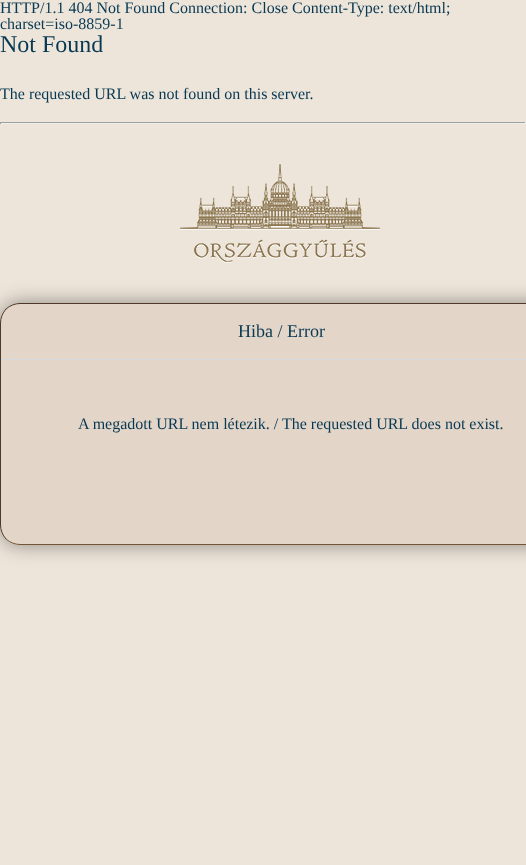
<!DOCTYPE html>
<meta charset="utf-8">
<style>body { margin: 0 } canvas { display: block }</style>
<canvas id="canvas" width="526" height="865"></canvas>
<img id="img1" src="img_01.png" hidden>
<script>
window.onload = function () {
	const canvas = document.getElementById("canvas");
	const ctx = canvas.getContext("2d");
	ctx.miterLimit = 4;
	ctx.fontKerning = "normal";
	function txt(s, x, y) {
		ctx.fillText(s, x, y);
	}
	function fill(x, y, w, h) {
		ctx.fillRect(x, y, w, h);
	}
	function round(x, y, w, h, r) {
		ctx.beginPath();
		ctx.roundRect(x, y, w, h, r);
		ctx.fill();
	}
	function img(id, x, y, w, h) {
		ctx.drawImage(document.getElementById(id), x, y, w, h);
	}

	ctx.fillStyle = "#EDE5DA";
	fill(0, 0, 526, 865);
	ctx.fillStyle = "#9F9F9F";
	fill(0, 122, 526, 1);
	ctx.fillStyle = "#EEEEEE";
	fill(525, 122, 1, 2);
	fill(0, 123, 526, 1);
	ctx.fillStyle = "#9F9F9F";
	fill(0, 122, 1, 2);
	img("img1", 180, 164, 200, 99);
	ctx.fillStyle = "rgba(0, 0, 0, 0.4)";
	ctx.filter = "blur(10px)";
	ctx.beginPath();
	ctx.roundRect(0, 303, 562, 242, 20);
	ctx.fill();
	ctx.filter = "none";
	ctx.fillStyle = "#E3D5C8";
	round(0, 303, 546, 242, 20);
	ctx.beginPath();
	ctx.moveTo(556, 309);
	ctx.bezierCurveTo(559.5, 313, 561.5, 318, 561.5, 323);
	ctx.lineTo(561.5, 525);
	ctx.bezierCurveTo(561.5, 530, 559.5, 535, 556, 539);
	ctx.bezierCurveTo(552, 542.5, 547, 544.5, 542, 544.5);
	ctx.lineTo(20, 544.5);
	ctx.bezierCurveTo(15, 544.5, 10, 542.5, 6, 539);
	ctx.strokeStyle = "#735637";
	ctx.stroke();
	ctx.beginPath();
	ctx.moveTo(6, 539);
	ctx.bezierCurveTo(2.5, 535, 0.5, 530, 0.5, 525);
	ctx.lineTo(0.5, 323);
	ctx.bezierCurveTo(0.5, 318, 2.5, 313, 6, 309);
	ctx.bezierCurveTo(10, 305.5, 15, 303.5, 20, 303.5);
	ctx.lineTo(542, 303.5);
	ctx.bezierCurveTo(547, 303.5, 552, 305.5, 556, 309);
	ctx.strokeStyle = "#4D3925";
	ctx.stroke();
	ctx.fillStyle = "#D6DADE";
	fill(1, 359, 525, 1);
	ctx.font = "16px Liberation Serif";
	ctx.fillStyle = "#083852";
	txt("HTTP/1.1 404 Not Found Connection: Close Content-Type: text/html;", 0, 13);
	txt("charset=iso-8859-1", 0, 29);
	ctx.font = "24px Liberation Serif";
	txt("Not Found", 0, 52);
	ctx.font = "16px Liberation Serif";
	txt("The requested URL was not found on this server.", 0, 99);
	ctx.font = "18px Liberation Serif";
	txt("Hiba / Error", 238, 337);
	ctx.font = "16px Liberation Serif";
	txt("A megadott URL nem létezik. / The requested URL does not exist.", 78, 429);
};
</script>
